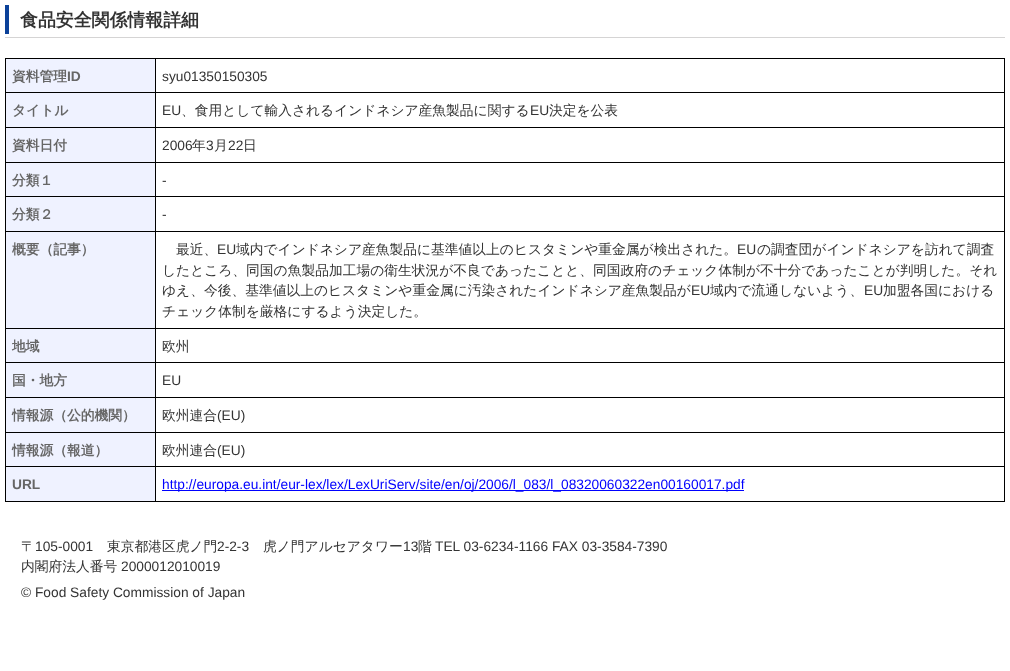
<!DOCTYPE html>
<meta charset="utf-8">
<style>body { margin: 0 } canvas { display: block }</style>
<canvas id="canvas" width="1010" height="671"></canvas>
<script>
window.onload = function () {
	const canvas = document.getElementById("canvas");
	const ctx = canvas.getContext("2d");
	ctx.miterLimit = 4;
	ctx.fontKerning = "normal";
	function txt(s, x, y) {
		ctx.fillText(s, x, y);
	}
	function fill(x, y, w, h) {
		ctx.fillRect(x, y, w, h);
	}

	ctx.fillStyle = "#FFFFFF";
	fill(0, 0, 1010, 671);
	ctx.fillStyle = "#0B4199";
	fill(5, 5, 4, 29);
	ctx.fillStyle = "#D5D4D4";
	fill(5, 37, 1000, 1);
	ctx.fillStyle = "#000000";
	fill(5, 58, 1000, 1);
	fill(1004, 58, 1, 444);
	fill(5, 501, 1000, 1);
	fill(5, 58, 1, 444);
	ctx.fillStyle = "#EFF2FF";
	fill(6, 59, 149, 33);
	ctx.fillStyle = "#000000";
	fill(155, 92, 850, 1);
	fill(155, 127, 850, 1);
	fill(155, 162, 850, 1);
	fill(155, 196, 850, 1);
	fill(155, 231, 850, 1);
	fill(155, 328, 850, 1);
	fill(155, 362, 850, 1);
	fill(155, 397, 850, 1);
	fill(155, 432, 850, 1);
	fill(155, 466, 850, 1);
	fill(155, 466, 1, 36);
	fill(5, 466, 151, 1);
	fill(155, 432, 1, 35);
	fill(5, 432, 151, 1);
	fill(155, 397, 1, 36);
	fill(5, 397, 151, 1);
	fill(155, 362, 1, 36);
	fill(5, 362, 151, 1);
	fill(155, 328, 1, 35);
	fill(5, 328, 151, 1);
	fill(155, 231, 1, 98);
	fill(5, 231, 151, 1);
	fill(155, 196, 1, 36);
	fill(5, 196, 151, 1);
	fill(155, 162, 1, 35);
	fill(5, 162, 151, 1);
	fill(155, 127, 1, 36);
	fill(5, 127, 151, 1);
	fill(155, 92, 1, 36);
	fill(5, 92, 151, 1);
	fill(155, 58, 1, 35);
	ctx.fillStyle = "#EFF2FF";
	fill(6, 93, 149, 34);
	fill(6, 128, 149, 34);
	fill(6, 163, 149, 33);
	fill(6, 197, 149, 34);
	fill(6, 232, 149, 96);
	fill(6, 329, 149, 33);
	fill(6, 363, 149, 34);
	fill(6, 398, 149, 34);
	fill(6, 433, 149, 33);
	fill(6, 467, 149, 34);
	ctx.fillStyle = "#0000FF";
	fill(162, 490, 582, 1);
	ctx.font = "bold 17.9px WenQuanYi Zen Hei";
	ctx.fillStyle = "#333333";
	txt("食品安全関係情報詳細", 20, 26);
	ctx.font = "bold 13.75px WenQuanYi Zen Hei";
	ctx.fillStyle = "#666666";
	txt("資料管理", 12, 81);
	ctx.font = "bold 13.75px Liberation Sans";
	txt("ID", 67, 81);
	ctx.font = "13.75px Liberation Sans";
	ctx.fillStyle = "#333333";
	txt("syu01350150305", 162, 81);
	ctx.font = "bold 13.75px WenQuanYi Zen Hei";
	ctx.fillStyle = "#666666";
	txt("タイトル", 12, 115);
	ctx.font = "13.75px Liberation Sans";
	ctx.fillStyle = "#333333";
	txt("EU", 162, 115);
	ctx.font = "500 13.75px WenQuanYi Zen Hei";
	txt("、食用として輸入されるインドネシア産魚製品に関する", 181, 115);
	ctx.font = "13.75px Liberation Sans";
	txt("EU", 530, 115);
	ctx.font = "500 13.75px WenQuanYi Zen Hei";
	txt("決定を公表", 549, 115);
	ctx.font = "bold 13.75px WenQuanYi Zen Hei";
	ctx.fillStyle = "#666666";
	txt("資料日付", 12, 150);
	ctx.font = "13.75px Liberation Sans";
	ctx.fillStyle = "#333333";
	txt("2006", 162, 150);
	ctx.font = "500 13.75px WenQuanYi Zen Hei";
	txt("年", 192, 150);
	ctx.font = "13.75px Liberation Sans";
	txt("3", 206, 150);
	ctx.font = "500 13.75px WenQuanYi Zen Hei";
	txt("月", 214, 150);
	ctx.font = "13.75px Liberation Sans";
	txt("22", 228, 150);
	ctx.font = "500 13.75px WenQuanYi Zen Hei";
	txt("日", 243, 150);
	ctx.font = "bold 13.75px WenQuanYi Zen Hei";
	ctx.fillStyle = "#666666";
	txt("分類１", 12, 185);
	ctx.font = "13.75px Liberation Sans";
	ctx.fillStyle = "#333333";
	txt("-", 162, 185);
	ctx.font = "bold 13.75px WenQuanYi Zen Hei";
	ctx.fillStyle = "#666666";
	txt("分類２", 12, 219);
	ctx.font = "13.75px Liberation Sans";
	ctx.fillStyle = "#333333";
	txt("-", 162, 219);
	ctx.font = "bold 13.75px WenQuanYi Zen Hei";
	ctx.fillStyle = "#666666";
	txt("概要（記事）", 12, 254);
	ctx.font = "500 13.75px WenQuanYi Zen Hei";
	ctx.fillStyle = "#333333";
	txt("最近、", 176, 254);
	ctx.font = "13.75px Liberation Sans";
	txt("EU", 217, 254);
	ctx.font = "500 13.75px WenQuanYi Zen Hei";
	txt("域内でインドネシア産魚製品に基準値以上のヒスタミンや重金属が検出された。", 236, 254);
	ctx.font = "13.75px Liberation Sans";
	txt("EU", 737, 254);
	ctx.font = "500 13.75px WenQuanYi Zen Hei";
	txt("の調査団がインドネシアを訪れて調査", 757, 254);
	txt("したところ、同国の魚製品加工場の衛生状況が不良であったことと、同国政府のチェック体制が不十分であったことが判明した。それ", 162, 275);
	txt("ゆえ、今後、基準値以上のヒスタミンや重金属に汚染されたインドネシア産魚製品が", 162, 295);
	ctx.font = "13.75px Liberation Sans";
	txt("EU", 691, 295);
	ctx.font = "500 13.75px WenQuanYi Zen Hei";
	txt("域内で流通しないよう、", 710, 295);
	ctx.font = "13.75px Liberation Sans";
	txt("EU", 864, 295);
	ctx.font = "500 13.75px WenQuanYi Zen Hei";
	txt("加盟各国における", 883, 295);
	txt("チェック体制を厳格にするよう決定した。", 162, 316);
	ctx.font = "bold 13.75px WenQuanYi Zen Hei";
	ctx.fillStyle = "#666666";
	txt("地域", 12, 351);
	ctx.font = "500 13.75px WenQuanYi Zen Hei";
	ctx.fillStyle = "#333333";
	txt("欧州", 162, 351);
	ctx.font = "bold 13.75px WenQuanYi Zen Hei";
	ctx.fillStyle = "#666666";
	txt("国・地方", 12, 385);
	ctx.font = "13.75px Liberation Sans";
	ctx.fillStyle = "#333333";
	txt("EU", 162, 385);
	ctx.font = "bold 13.75px WenQuanYi Zen Hei";
	ctx.fillStyle = "#666666";
	txt("情報源（公的機関）", 12, 420);
	ctx.font = "500 13.75px WenQuanYi Zen Hei";
	ctx.fillStyle = "#333333";
	txt("欧州連合", 162, 420);
	ctx.font = "13.75px Liberation Sans";
	txt("(EU)", 217, 420);
	ctx.font = "bold 13.75px WenQuanYi Zen Hei";
	ctx.fillStyle = "#666666";
	txt("情報源（報道）", 12, 455);
	ctx.font = "500 13.75px WenQuanYi Zen Hei";
	ctx.fillStyle = "#333333";
	txt("欧州連合", 162, 455);
	ctx.font = "13.75px Liberation Sans";
	txt("(EU)", 217, 455);
	ctx.font = "bold 13.75px Liberation Sans";
	ctx.fillStyle = "#666666";
	txt("URL", 12, 489);
	ctx.font = "13.75px Liberation Sans";
	ctx.fillStyle = "#0000FF";
	txt("http://europa.eu.int/eur-lex/lex/LexUriServ/site/en/oj/2006/l_083/l_08320060322en00160017.pdf", 162, 489);
	ctx.font = "500 13.75px WenQuanYi Zen Hei";
	ctx.fillStyle = "#333333";
	txt("〒", 21, 551);
	ctx.font = "13.75px Liberation Sans";
	txt("105-0001", 35, 551);
	ctx.font = "500 13.75px WenQuanYi Zen Hei";
	txt("東京都港区虎ノ門", 107, 551);
	ctx.font = "13.75px Liberation Sans";
	txt("2-2-3", 217, 551);
	ctx.font = "500 13.75px WenQuanYi Zen Hei";
	txt("虎ノ門アルセアタワー", 263, 551);
	ctx.font = "13.75px Liberation Sans";
	txt("13", 403, 551);
	ctx.font = "500 13.75px WenQuanYi Zen Hei";
	txt("階", 418, 551);
	ctx.font = "13.75px Liberation Sans";
	txt("TEL 03-6234-1166 FAX 03-3584-7390", 435, 551);
	ctx.font = "500 13.75px WenQuanYi Zen Hei";
	txt("内閣府法人番号", 21, 571);
	ctx.font = "13.75px Liberation Sans";
	txt("2000012010019", 121, 571);
	txt("© Food Safety Commission of Japan", 21, 597);
};
</script>
